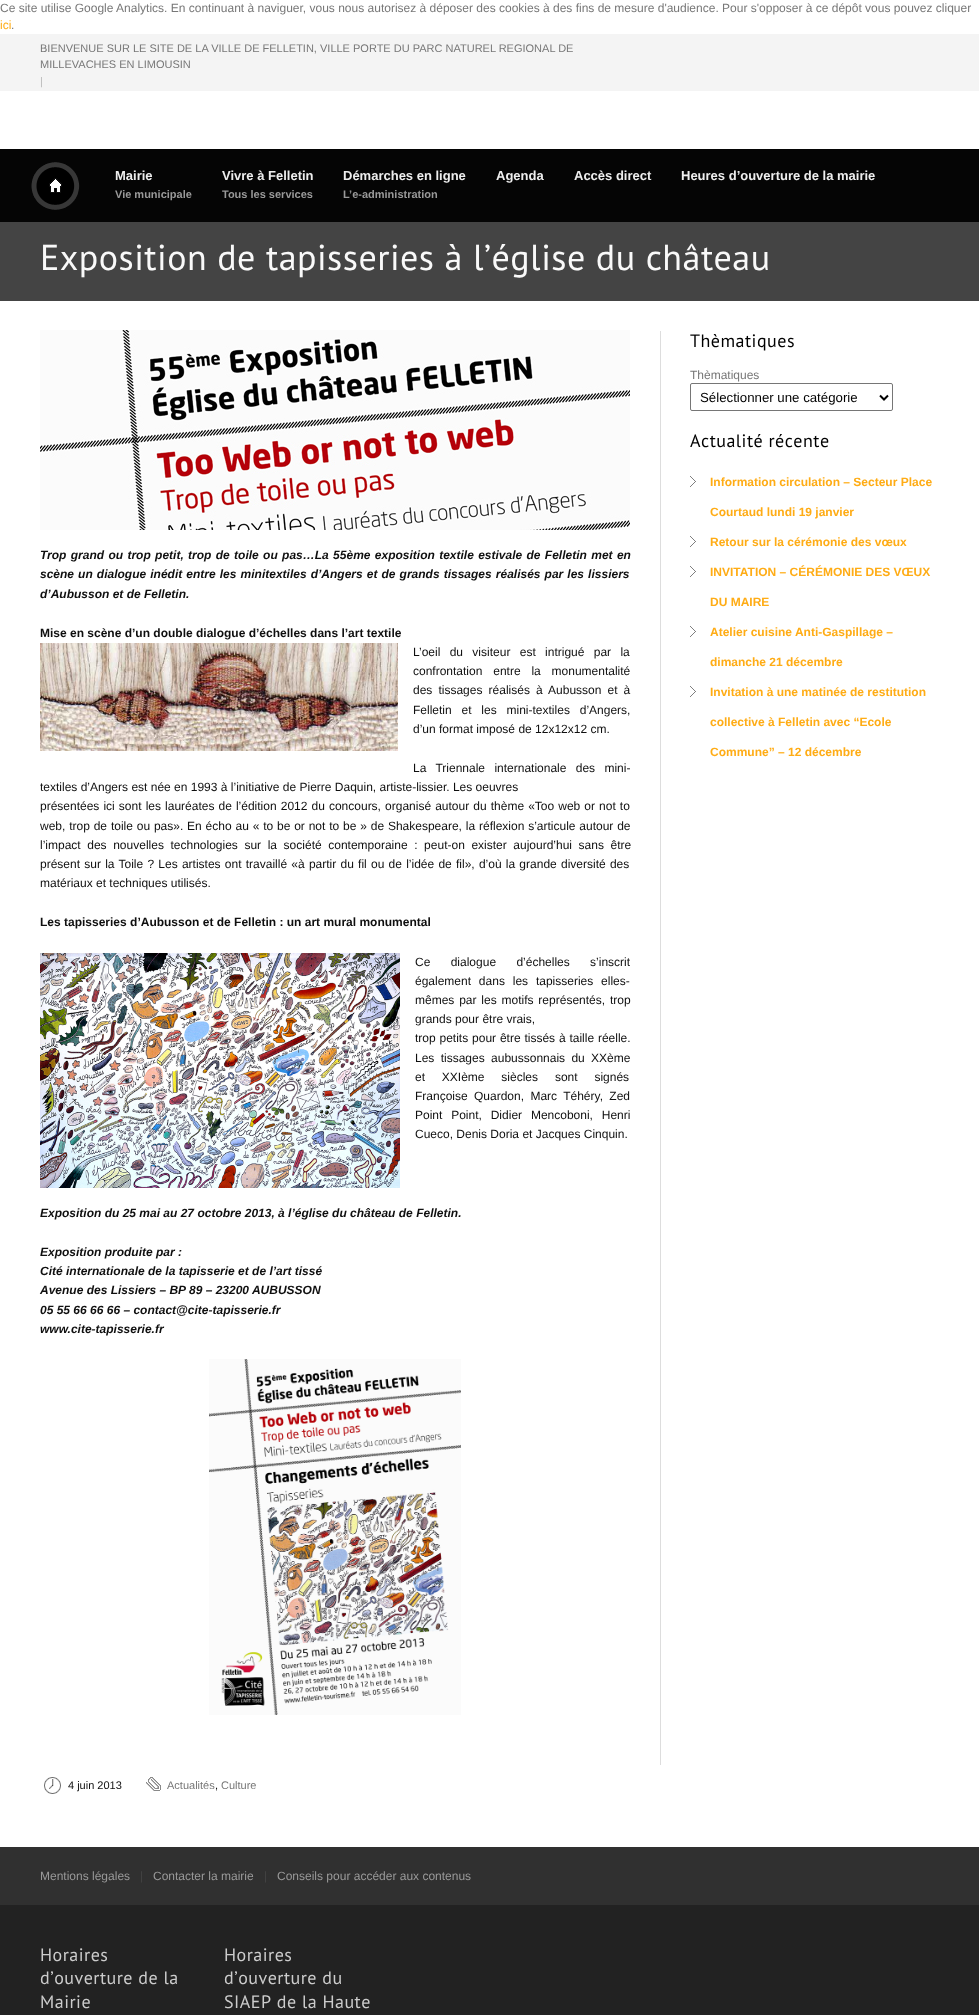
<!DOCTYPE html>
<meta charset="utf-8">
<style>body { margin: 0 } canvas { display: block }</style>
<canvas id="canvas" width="979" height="2015"></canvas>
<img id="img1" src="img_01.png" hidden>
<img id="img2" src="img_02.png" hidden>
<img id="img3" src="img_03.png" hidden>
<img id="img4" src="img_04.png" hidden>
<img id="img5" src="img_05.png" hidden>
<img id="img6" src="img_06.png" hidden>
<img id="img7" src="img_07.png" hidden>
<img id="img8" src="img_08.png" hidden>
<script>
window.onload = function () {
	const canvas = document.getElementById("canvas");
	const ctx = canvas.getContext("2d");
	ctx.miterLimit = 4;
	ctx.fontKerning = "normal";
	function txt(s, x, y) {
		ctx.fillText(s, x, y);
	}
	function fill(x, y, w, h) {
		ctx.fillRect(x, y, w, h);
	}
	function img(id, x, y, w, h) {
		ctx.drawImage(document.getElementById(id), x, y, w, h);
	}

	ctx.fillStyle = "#FFFFFF";
	fill(0, 0, 979, 2015);
	ctx.fillStyle = "#F4F4F4";
	fill(0, 34, 979, 57);
	ctx.fillStyle = "#050505";
	fill(0, 149, 979, 73);
	img("img1", 31, 162, 49, 48);
	ctx.fillStyle = "#444444";
	fill(0, 222, 979, 79);
	ctx.fillStyle = "#DDDDDD";
	fill(660, 331, 1, 1434);
	img("img2", 40, 330, 590, 200);
	img("img3", 40, 643, 358, 108);
	img("img4", 40, 953, 360, 235);
	img("img5", 209, 1359, 252, 356);
	ctx.beginPath();
	ctx.roundRect(690.5, 383.5, 202, 27, 1.5);
	ctx.strokeStyle = "#767676";
	ctx.stroke();
	ctx.beginPath();
	ctx.moveTo(880, 395.5);
	ctx.lineTo(884, 399.5);
	ctx.lineTo(888, 395.5);
	ctx.strokeStyle = "#000000";
	ctx.lineWidth = 2;
	ctx.stroke();
	img("img6", 690, 476, 6, 11);
	img("img6", 690, 536, 6, 11);
	img("img6", 690, 566, 6, 11);
	img("img6", 690, 626, 6, 11);
	img("img6", 690, 686, 6, 11);
	img("img7", 44, 1777, 17, 17);
	img("img8", 146, 1777, 15, 14);
	ctx.fillStyle = "#303030";
	fill(0, 1847, 979, 58);
	ctx.fillStyle = "#222222";
	fill(0, 1905, 979, 110);
	ctx.font = "12px Liberation Sans";
	ctx.fillStyle = "#777777";
	txt("Ce site utilise Google Analytics. En continuant à naviguer, vous nous autorisez à déposer des cookies à des fins de mesure d'audience. Pour s'opposer à ce dépôt vous pouvez cliquer", 0, 12);
	ctx.fillStyle = "#FFAC15";
	txt("ici", 0, 29);
	ctx.fillStyle = "#777777";
	txt(".", 11, 29);
	ctx.font = "11px Liberation Sans";
	txt("BIENVENUE SUR LE SITE DE LA VILLE DE FELLETIN, VILLE PORTE DU PARC NATUREL REGIONAL DE", 40, 52);
	txt("MILLEVACHES EN LIMOUSIN", 40, 68);
	ctx.fillStyle = "#BBBBBB";
	txt("|", 40, 85);
	ctx.font = "bold 13px Liberation Sans";
	ctx.fillStyle = "#EEEEEE";
	txt("Mairie", 115, 180);
	ctx.font = "bold 11px Liberation Sans";
	ctx.fillStyle = "#999999";
	txt("Vie municipale", 115, 198);
	ctx.font = "bold 13px Liberation Sans";
	ctx.fillStyle = "#EEEEEE";
	txt("Vivre à Felletin", 222, 180);
	ctx.font = "bold 11px Liberation Sans";
	ctx.fillStyle = "#999999";
	txt("Tous les services", 222, 198);
	ctx.font = "bold 13px Liberation Sans";
	ctx.fillStyle = "#EEEEEE";
	txt("Démarches en ligne", 343, 180);
	ctx.font = "bold 11px Liberation Sans";
	ctx.fillStyle = "#999999";
	txt("L’e-administration", 343, 198);
	ctx.font = "bold 13px Liberation Sans";
	ctx.fillStyle = "#EEEEEE";
	txt("Agenda", 496, 180);
	txt("Accès direct", 574, 180);
	txt("Heures d’ouverture de la mairie", 681, 180);
	ctx.letterSpacing = "0.5px";
	ctx.font = "36px PT Sans";
	ctx.fillStyle = "#F9F9F9";
	txt("Exposition de tapisseries à l’église du château", 40, 270);
	ctx.letterSpacing = "0px";
	ctx.wordSpacing = "1px";
	ctx.font = "italic bold 12px Liberation Sans";
	ctx.fillStyle = "#0F0F0F";
	txt("Trop grand ou trop petit, trop de toile ou pas…La 55ème exposition textile estivale de Felletin met en", 40, 559);
	ctx.wordSpacing = "0.75px";
	txt("scène un dialogue inédit entre les minitextiles d’Angers et de grands tissages réalisés par les lissiers", 40, 578);
	ctx.wordSpacing = "0px";
	txt("d’Aubusson et de Felletin.", 40, 598);
	ctx.font = "bold 12px Liberation Sans";
	txt("Mise en scène d’un double dialogue d’échelles dans l’art textile", 40, 637);
	ctx.wordSpacing = "6px";
	ctx.font = "12px Liberation Sans";
	txt("L’oeil du visiteur est intrigué par la", 413, 656);
	ctx.wordSpacing = "7.5px";
	txt("confrontation entre la monumentalité", 413, 675);
	ctx.wordSpacing = "2.75px";
	txt("des tissages réalisés à Aubusson et à", 413, 694);
	ctx.wordSpacing = "6.5px";
	txt("Felletin et les mini-textiles d’Angers,", 413, 714);
	ctx.wordSpacing = "0px";
	txt("d’un format imposé de 12x12x12 cm.", 413, 733);
	ctx.wordSpacing = "6px";
	txt("La Triennale internationale des mini-", 413, 772);
	ctx.wordSpacing = "0px";
	txt("textiles d’Angers est née en 1993 à l’initiative de Pierre Daquin, artiste-lissier. Les oeuvres", 40, 791);
	ctx.wordSpacing = "0.75px";
	txt("présentées ici sont les lauréates de l’édition 2012 du concours, organisé autour du thème «Too web or not to", 40, 810);
	ctx.wordSpacing = "0.5px";
	txt("web, trop de toile ou pas». En écho au « to be or not to be » de Shakespeare, la réflexion s’articule autour de", 40, 830);
	ctx.wordSpacing = "3.25px";
	txt("l’impact des nouvelles technologies sur la société contemporaine : peut-on exister aujourd’hui sans être", 40, 849);
	ctx.wordSpacing = "0.9px";
	txt("présent sur la Toile ? Les artistes ont travaillé «à partir du fil ou de l’idée de fil», d’où la grande diversité des", 40, 868);
	ctx.wordSpacing = "0px";
	txt("matériaux et techniques utilisés.", 40, 887);
	ctx.font = "bold 12px Liberation Sans";
	txt("Les tapisseries d’Aubusson et de Felletin : un art mural monumental", 40, 926);
	ctx.wordSpacing = "17px";
	ctx.font = "12px Liberation Sans";
	txt("Ce dialogue d’échelles s’inscrit", 415, 966);
	ctx.wordSpacing = "4.5px";
	txt("également dans les tapisseries elles-", 415, 985);
	ctx.wordSpacing = "1.5px";
	txt("mêmes par les motifs représentés, trop", 415, 1004);
	ctx.wordSpacing = "0px";
	txt("grands pour être vrais,", 415, 1023);
	ctx.wordSpacing = "0.5px";
	txt("trop petits pour être tissés à taille réelle.", 415, 1042);
	ctx.wordSpacing = "3px";
	txt("Les tissages aubussonnais du XXème", 415, 1062);
	ctx.wordSpacing = "13.5px";
	txt("et XXIème siècles sont signés", 415, 1081);
	ctx.wordSpacing = "3px";
	txt("Françoise Quardon, Marc Téhéry, Zed", 415, 1100);
	ctx.wordSpacing = "5.5px";
	txt("Point Point, Didier Mencoboni, Henri", 415, 1119);
	ctx.wordSpacing = "0px";
	txt("Cueco, Denis Doria et Jacques Cinquin.", 415, 1138);
	ctx.font = "italic bold 12px Liberation Sans";
	txt("Exposition du 25 mai au 27 octobre 2013, à l’église du château de Felletin.", 40, 1217);
	txt("Exposition produite par :", 40, 1256);
	txt("Cité internationale de la tapisserie et de l’art tissé", 40, 1275);
	txt("Avenue des Lissiers – BP 89 – 23200 AUBUSSON", 40, 1294);
	txt("05 55 66 66 66 – contact@cite-tapisserie.fr", 40, 1314);
	txt("www.cite-tapisserie.fr", 40, 1333);
	ctx.letterSpacing = "0.5px";
	ctx.font = "18px PT Sans";
	ctx.fillStyle = "#000000";
	txt("Thèmatiques", 690, 347);
	ctx.letterSpacing = "0px";
	ctx.font = "12px Liberation Sans";
	ctx.fillStyle = "#777777";
	txt("Thèmatiques", 690, 379);
	ctx.font = "13.25px Liberation Sans";
	ctx.fillStyle = "#000000";
	txt("Sélectionner une catégorie", 700, 402);
	ctx.letterSpacing = "0.5px";
	ctx.font = "18px PT Sans";
	txt("Actualité récente", 690, 447);
	ctx.letterSpacing = "0px";
	ctx.font = "bold 12px Liberation Sans";
	ctx.fillStyle = "#FFAC15";
	txt("Information circulation – Secteur Place", 710, 486);
	txt("Courtaud lundi 19 janvier", 710, 516);
	txt("Retour sur la cérémonie des vœux", 710, 546);
	txt("INVITATION – CÉRÉMONIE DES VŒUX", 710, 576);
	txt("DU MAIRE", 710, 606);
	txt("Atelier cuisine Anti-Gaspillage –", 710, 636);
	txt("dimanche 21 décembre", 710, 666);
	txt("Invitation à une matinée de restitution", 710, 696);
	txt("collective à Felletin avec “Ecole", 710, 726);
	txt("Commune” – 12 décembre", 710, 756);
	ctx.font = "11px Liberation Sans";
	ctx.fillStyle = "#0F0F0F";
	txt("4 juin 2013", 68, 1789);
	ctx.fillStyle = "#777777";
	txt("Actualités", 167, 1789);
	ctx.fillStyle = "#0F0F0F";
	txt(",", 215, 1789);
	ctx.fillStyle = "#777777";
	txt("Culture", 221, 1789);
	ctx.font = "12px Liberation Sans";
	ctx.fillStyle = "#999999";
	txt("Mentions légales", 40, 1880);
	ctx.fillStyle = "#444444";
	txt("|", 140, 1880);
	ctx.fillStyle = "#999999";
	txt("Contacter la mairie", 153, 1880);
	ctx.fillStyle = "#444444";
	txt("|", 264, 1880);
	ctx.fillStyle = "#999999";
	txt("Conseils pour accéder aux contenus", 277, 1880);
	ctx.letterSpacing = "0.5px";
	ctx.font = "18px PT Sans";
	ctx.fillStyle = "#CCCCCC";
	txt("Horaires", 40, 1961);
	txt("d’ouverture de la", 40, 1984);
	txt("Mairie", 40, 2008);
	txt("Horaires", 224, 1961);
	txt("d’ouverture du", 224, 1984);
	txt("SIAEP de la Haute", 224, 2008);
};
</script>
